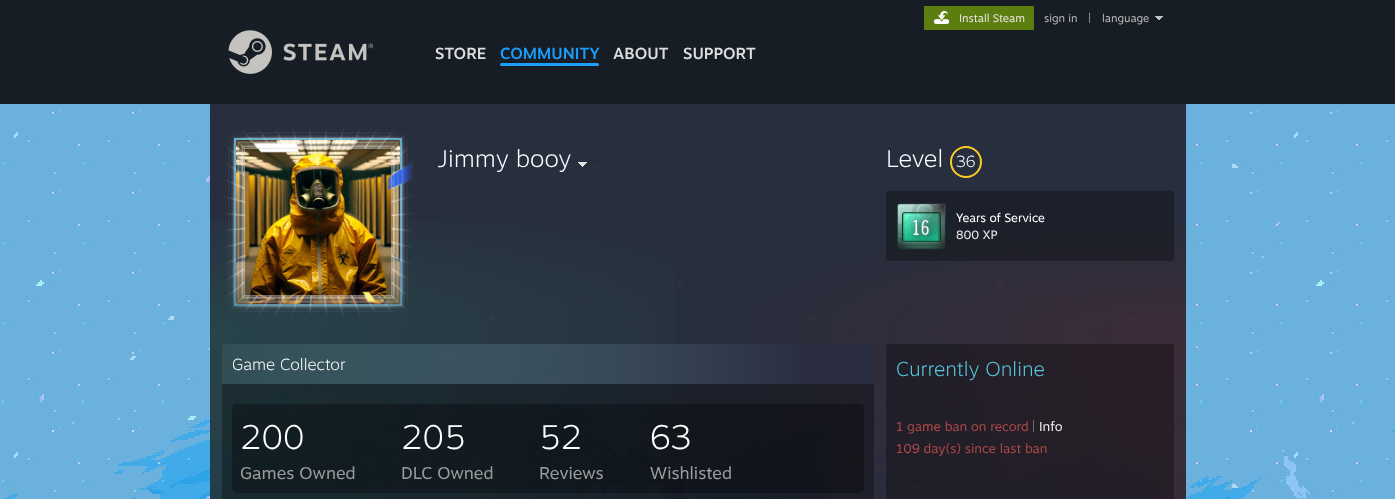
<!DOCTYPE html>
<meta charset="utf-8">
<style>body { margin: 0 } canvas { display: block }</style>
<canvas id="canvas" width="1395" height="499"></canvas>
<img id="img1" src="img_01.png" hidden>
<img id="img2" src="img_02.png" hidden>
<img id="img3" src="img_03.png" hidden>
<img id="img4" src="img_04.png" hidden>
<img id="img5" src="img_06.png" hidden>
<img id="img6" src="img_05.png" hidden>
<img id="img7" src="img_07.png" hidden>
<img id="img8" src="img_08.png" hidden>
<script>
window.onload = function () {
	const canvas = document.getElementById("canvas");
	const ctx = canvas.getContext("2d");
	ctx.miterLimit = 4;
	ctx.fontKerning = "normal";
	function txt(s, x, y) {
		ctx.fillText(s, x, y);
	}
	function fill(x, y, w, h) {
		ctx.fillRect(x, y, w, h);
	}
	function round(x, y, w, h, r) {
		ctx.beginPath();
		ctx.roundRect(x, y, w, h, r);
		ctx.fill();
	}
	function img(id, x, y, w, h) {
		ctx.drawImage(document.getElementById(id), x, y, w, h);
	}
	let gradient;

	ctx.fillStyle = "#171D25";
	fill(0, 0, 1395, 499);
	ctx.fillStyle = "#5C7E10";
	fill(924, 6, 110, 24);
	img("img1", 934, 11, 15, 13);
	img("img2", 1155, 16, 8, 4);
	img("img3", 228, 30, 145, 44);
	ctx.fillStyle = "#1A9FFF";
	round(500, 63, 99, 3, 1.5);
	img("img4", 0, 104, 1395, 395);
	ctx.fillStyle = "rgba(34, 35, 48, 0.93)";
	fill(210, 104, 976, 224);
	gradient = ctx.createRadialGradient(210, 1427.89, 0, 210, 1427.89, 1380);
	gradient.addColorStop(0, "rgba(50, 255, 193, 0.1)");
	gradient.addColorStop(0.43, "rgba(50, 255, 193, 0)");
	ctx.fillStyle = gradient;
	ctx.beginPath();
	ctx.rect(210, 221, 465, 107);
	ctx.save();
	ctx.clip();
	ctx.scale(1, 317 / 1380);
	ctx.fillRect(0, 0, 1395, 2173);
	ctx.restore();
	gradient = ctx.createRadialGradient(1186, 1429.14, 0, 1186, 1429.14, 976);
	gradient.addColorStop(0, "rgba(109, 38, 44, 0.3)");
	gradient.addColorStop(0.51, "rgba(109, 38, 44, 0)");
	ctx.fillStyle = gradient;
	ctx.beginPath();
	ctx.rect(741, 226, 445, 102);
	ctx.save();
	ctx.clip();
	ctx.scale(1, 224 / 976);
	ctx.fillRect(0, 0, 1395, 2175);
	ctx.restore();
	gradient = ctx.createLinearGradient(318, 138, 318, 306);
	gradient.addColorStop(0.05, "#53A4C4");
	gradient.addColorStop(0.95, "#458097");
	ctx.fillStyle = gradient;
	fill(234, 138, 168, 168);
	img("img5", 236, 140, 164, 164);
	img("img6", 223, 127, 191, 190);
	img("img7", 578, 162, 9, 5);
	ctx.beginPath();
	ctx.arc(966, 162, 15, 0, Math.PI * 2);
	ctx.strokeStyle = "#FECC23";
	ctx.lineWidth = 2;
	ctx.stroke();
	ctx.fillStyle = "rgba(0, 0, 0, 0.3)";
	round(886, 191, 288, 70, 3);
	img("img8", 897, 203, 49, 47);
	ctx.fillStyle = "rgba(34, 35, 48, 0.93)";
	fill(210, 328, 976, 171);
	gradient = ctx.createRadialGradient(210, 278.38, 0, 210, 278.38, 1380);
	gradient.addColorStop(0, "rgba(50, 255, 193, 0.1)");
	gradient.addColorStop(0.43, "rgba(50, 255, 193, 0)");
	ctx.fillStyle = gradient;
	ctx.beginPath();
	ctx.rect(210, 328, 465, 171);
	ctx.save();
	ctx.clip();
	ctx.scale(1, 1626 / 1380);
	ctx.fillRect(0, 0, 1395, 424);
	ctx.restore();
	gradient = ctx.createRadialGradient(1186, 278.37, 0, 1186, 278.37, 976);
	gradient.addColorStop(0, "rgba(109, 38, 44, 0.3)");
	gradient.addColorStop(0.51, "rgba(109, 38, 44, 0)");
	ctx.fillStyle = gradient;
	ctx.beginPath();
	ctx.rect(741, 328, 445, 171);
	ctx.save();
	ctx.clip();
	ctx.scale(1, 1150 / 976);
	ctx.fillRect(0, 0, 1395, 424);
	ctx.restore();
	ctx.fillStyle = "rgba(0, 0, 0, 0.3)";
	round(222, 344, 652, 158, 3);
	gradient = ctx.createLinearGradient(222, 364, 874, 364);
	gradient.addColorStop(0, "rgba(115, 173, 184, 0.25)");
	gradient.addColorStop(0.9, "rgba(43, 45, 68, 0.93)");
	ctx.fillStyle = gradient;
	ctx.beginPath();
	ctx.roundRect(222, 344, 652, 40, [3, 3, 0, 0]);
	ctx.fill();
	ctx.fillStyle = "rgba(0, 0, 0, 0.3)";
	round(232, 404, 632, 89, 5);
	round(886, 344, 288, 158, 3);
	ctx.font = "11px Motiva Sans";
	ctx.fillStyle = "#E5E4DC";
	txt("Install Steam", 959, 22);
	ctx.fillStyle = "#B8B6B4";
	txt("sign in", 1044, 22);
	txt("|", 1088, 22);
	txt("language", 1102, 22);
	ctx.font = "500 16px Motiva Sans";
	ctx.fillStyle = "#DCDEDF";
	txt("STORE", 435, 59);
	ctx.fillStyle = "#1A9FFF";
	txt("COMMUNITY", 500, 59);
	ctx.fillStyle = "#DCDEDF";
	txt("ABOUT", 613, 59);
	txt("SUPPORT", 683, 59);
	ctx.font = "100 24px Motiva Sans";
	ctx.fillStyle = "#FFFFFF";
	txt("Jimmy booy", 438, 167);
	txt("Level", 886, 167);
	ctx.font = "100 16px Motiva Sans";
	txt("36", 956, 167);
	ctx.font = "12px Motiva Sans";
	txt("Years of Service", 956, 222);
	ctx.fillStyle = "#EBEBEB";
	txt("800 XP", 956, 239);
	ctx.font = "100 16px Motiva Sans";
	ctx.fillStyle = "#FFFFFF";
	txt("Game Collector", 232, 370);
	ctx.font = "100 34px Motiva Sans";
	txt("200", 240, 449);
	ctx.font = "17px Motiva Sans";
	ctx.fillStyle = "#9B9B9B";
	txt("Games Owned", 240, 479);
	ctx.font = "100 34px Motiva Sans";
	ctx.fillStyle = "#FFFFFF";
	txt("205", 401, 449);
	ctx.font = "17px Motiva Sans";
	ctx.fillStyle = "#9B9B9B";
	txt("DLC Owned", 401, 479);
	ctx.font = "100 34px Motiva Sans";
	ctx.fillStyle = "#FFFFFF";
	txt("52", 539, 449);
	ctx.font = "17px Motiva Sans";
	ctx.fillStyle = "#9B9B9B";
	txt("Reviews", 539, 479);
	ctx.font = "100 34px Motiva Sans";
	ctx.fillStyle = "#FFFFFF";
	txt("63", 650, 449);
	ctx.font = "17px Motiva Sans";
	ctx.fillStyle = "#9B9B9B";
	txt("Wishlisted", 650, 479);
	ctx.font = "100 20px Motiva Sans";
	ctx.fillStyle = "#57CBDE";
	txt("Currently Online", 896, 376);
	ctx.font = "13px Motiva Sans";
	ctx.fillStyle = "#A94847";
	txt("1 game ban on record", 896, 431);
	ctx.fillStyle = "#828282";
	txt("|", 1032, 431);
	ctx.fillStyle = "#EBEBEB";
	txt("Info", 1039, 431);
	ctx.fillStyle = "#A94847";
	txt("109 day(s) since last ban", 896, 453);
};
</script>
